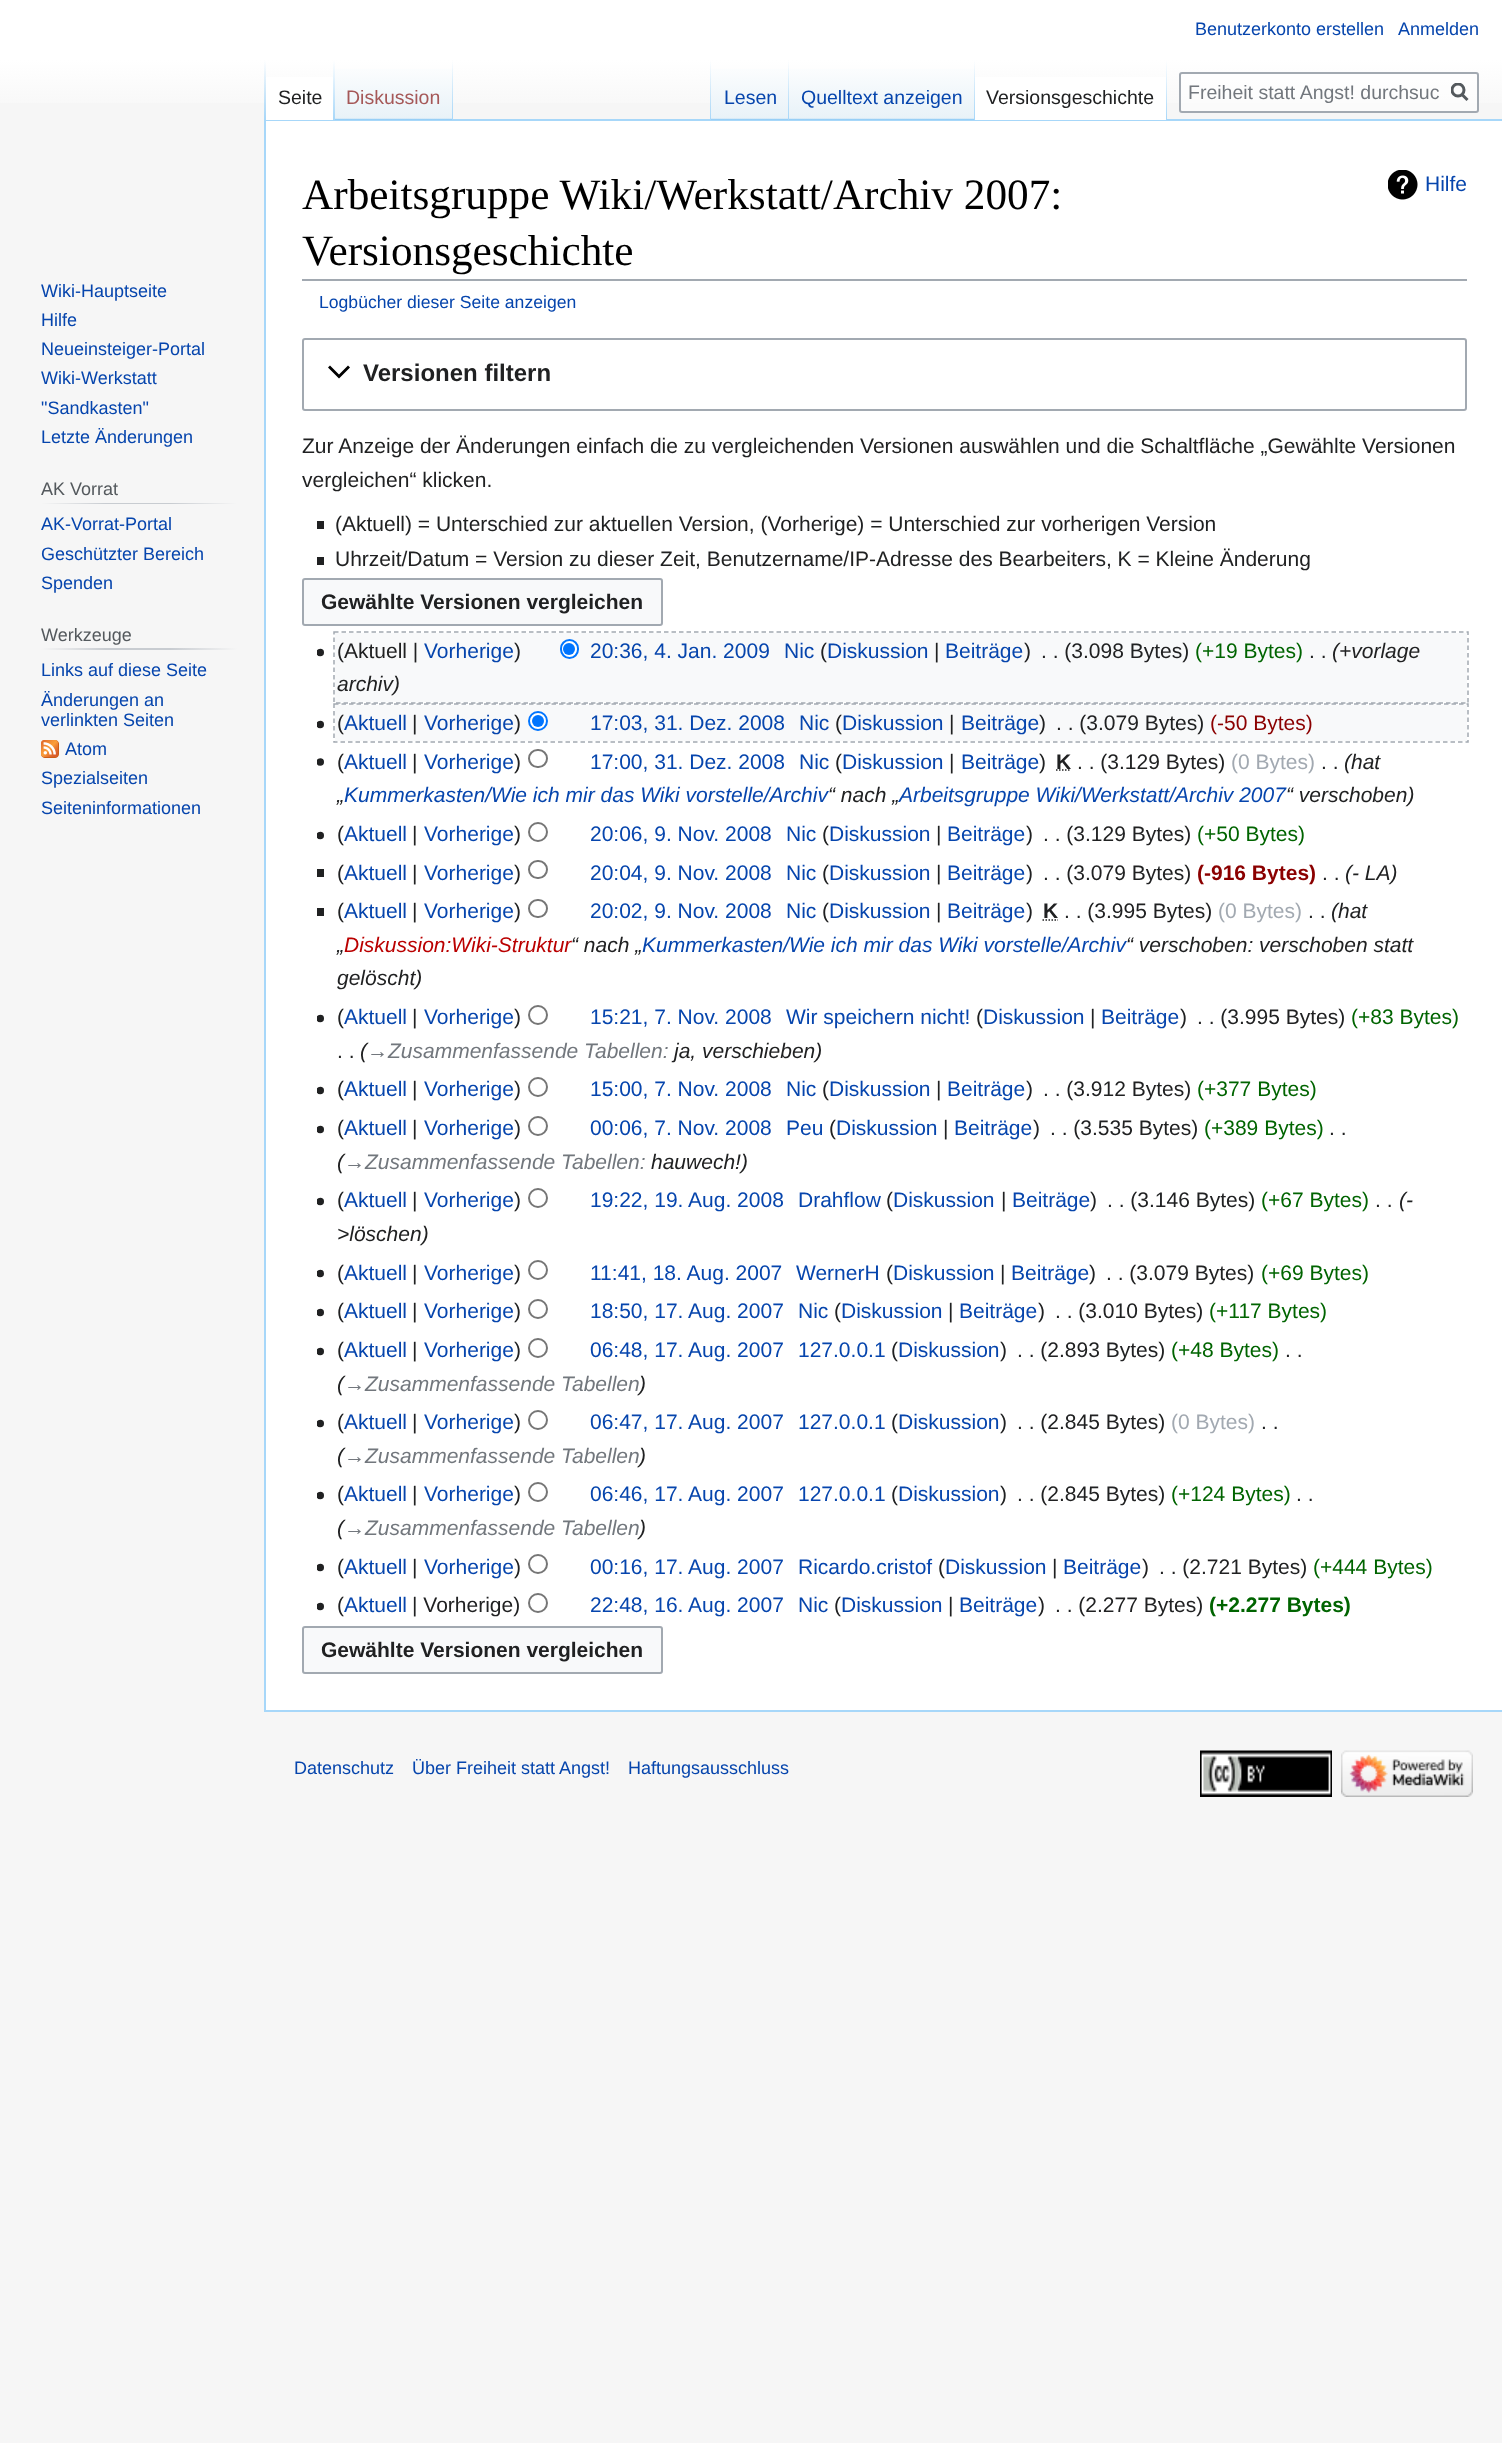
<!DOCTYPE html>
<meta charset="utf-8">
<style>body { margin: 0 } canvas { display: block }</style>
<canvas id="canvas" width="1502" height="2443"></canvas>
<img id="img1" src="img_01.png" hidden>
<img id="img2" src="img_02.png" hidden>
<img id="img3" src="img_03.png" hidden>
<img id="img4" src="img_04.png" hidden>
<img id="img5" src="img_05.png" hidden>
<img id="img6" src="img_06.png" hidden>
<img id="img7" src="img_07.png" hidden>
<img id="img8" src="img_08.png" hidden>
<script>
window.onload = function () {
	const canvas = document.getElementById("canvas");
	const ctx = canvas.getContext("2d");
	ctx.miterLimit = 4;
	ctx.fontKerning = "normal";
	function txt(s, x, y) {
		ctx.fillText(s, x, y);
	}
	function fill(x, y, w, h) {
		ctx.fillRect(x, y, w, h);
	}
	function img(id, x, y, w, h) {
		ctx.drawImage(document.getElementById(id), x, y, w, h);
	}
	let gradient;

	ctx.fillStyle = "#F6F6F6";
	fill(0, 0, 1502, 2443);
	gradient = ctx.createLinearGradient(752, 0, 752, 120);
	gradient.addColorStop(0.5, "#FFFFFF");
	gradient.addColorStop(1, "#F6F6F6");
	ctx.fillStyle = gradient;
	fill(0, 0, 1502, 103);
	ctx.fillStyle = "#A7D7F9";
	fill(264, 119, 1238, 2);
	fill(264, 1710, 1238, 2);
	fill(264, 119, 2, 1593);
	gradient = ctx.createLinearGradient(265, 60, 265, 120);
	gradient.addColorStop(0, "rgba(167, 215, 249, 0)");
	gradient.addColorStop(1, "#A7D7F9");
	ctx.fillStyle = gradient;
	fill(264, 60, 2, 60);
	ctx.fillStyle = "#FFFFFF";
	fill(266, 77, 67, 43);
	gradient = ctx.createLinearGradient(334, 60, 334, 120);
	gradient.addColorStop(0, "#FFFFFF");
	gradient.addColorStop(1, "#A7D7F9");
	ctx.fillStyle = gradient;
	fill(333, 60, 2, 60);
	gradient = ctx.createLinearGradient(394, 120, 394, 60);
	gradient.addColorStop(0, "#77C1F6");
	gradient.addColorStop(0.03, "#E8F2F8");
	gradient.addColorStop(1, "#FFFFFF");
	ctx.fillStyle = gradient;
	fill(335, 69, 118, 51);
	gradient = ctx.createLinearGradient(452, 60, 452, 120);
	gradient.addColorStop(0, "rgba(167, 215, 249, 0)");
	gradient.addColorStop(1, "#A7D7F9");
	ctx.fillStyle = gradient;
	fill(452, 60, 1, 60);
	gradient = ctx.createLinearGradient(710, 60, 710, 120);
	gradient.addColorStop(0, "rgba(167, 215, 249, 0)");
	gradient.addColorStop(1, "#A7D7F9");
	ctx.fillStyle = gradient;
	fill(710, 60, 1, 60);
	gradient = ctx.createLinearGradient(750, 120, 750, 60);
	gradient.addColorStop(0, "#77C1F6");
	gradient.addColorStop(0.03, "#E8F2F8");
	gradient.addColorStop(1, "#FFFFFF");
	ctx.fillStyle = gradient;
	fill(711, 69, 78, 51);
	gradient = ctx.createLinearGradient(788, 60, 788, 120);
	gradient.addColorStop(0, "rgba(167, 215, 249, 0)");
	gradient.addColorStop(1, "#A7D7F9");
	ctx.fillStyle = gradient;
	fill(788, 60, 1, 60);
	gradient = ctx.createLinearGradient(882, 120, 882, 60);
	gradient.addColorStop(0, "#77C1F6");
	gradient.addColorStop(0.03, "#E8F2F8");
	gradient.addColorStop(1, "#FFFFFF");
	ctx.fillStyle = gradient;
	fill(789, 69, 186, 51);
	gradient = ctx.createLinearGradient(974, 60, 974, 120);
	gradient.addColorStop(0, "rgba(167, 215, 249, 0)");
	gradient.addColorStop(1, "#A7D7F9");
	ctx.fillStyle = gradient;
	fill(974, 60, 1, 60);
	ctx.fillStyle = "#FFFFFF";
	fill(975, 77, 191, 43);
	gradient = ctx.createLinearGradient(1166, 60, 1166, 120);
	gradient.addColorStop(0, "#FFFFFF");
	gradient.addColorStop(1, "#A7D7F9");
	ctx.fillStyle = gradient;
	fill(1166, 60, 1, 60);
	ctx.fillStyle = "rgba(255, 255, 255, 0.5)";
	ctx.beginPath();
	ctx.roundRect(1180, 73, 298, 39, 2);
	ctx.fill();
	ctx.strokeStyle = "#A2A9B1";
	ctx.lineWidth = 2;
	ctx.stroke();
	ctx.beginPath();
	ctx.moveTo(1467.5, 100);
	ctx.lineTo(1461.5, 94);
	ctx.strokeStyle = "#54595D";
	ctx.lineWidth = 3;
	ctx.stroke();
	ctx.save();
	ctx.beginPath();
	ctx.rect(1451, 83, 18, 19);
	ctx.clip();
	ctx.beginPath();
	ctx.arc(1458, 90, 6, 0, Math.PI * 2);
	ctx.stroke();
	ctx.restore();
	gradient = ctx.createLinearGradient(41, 503, 237, 503);
	gradient.addColorStop(0, "#F6F6F6");
	gradient.addColorStop(0.33, "#C8CCD1");
	gradient.addColorStop(0.66, "#C8CCD1");
	gradient.addColorStop(1, "#F6F6F6");
	ctx.fillStyle = gradient;
	fill(41, 503, 196, 1);
	gradient = ctx.createLinearGradient(41, 649, 237, 649);
	gradient.addColorStop(0, "#F6F6F6");
	gradient.addColorStop(0.33, "#C8CCD1");
	gradient.addColorStop(0.66, "#C8CCD1");
	gradient.addColorStop(1, "#F6F6F6");
	ctx.fillStyle = gradient;
	fill(41, 648, 196, 2);
	img("img1", 41, 740, 18, 18);
	ctx.fillStyle = "#FFFFFF";
	fill(266, 121, 1236, 1589);
	ctx.fillStyle = "#A2A9B1";
	fill(302, 279, 1165, 2);
	img("img2", 1388, 170, 30, 30);
	ctx.beginPath();
	ctx.roundRect(303, 339, 1163, 71, 2);
	ctx.strokeStyle = "#A2A9B1";
	ctx.lineWidth = 2;
	ctx.stroke();
	ctx.fillStyle = "#000000";
	ctx.beginPath();
	ctx.moveTo(348, 365.5);
	ctx.lineTo(339, 374.5);
	ctx.lineTo(330, 365.5);
	ctx.lineTo(328, 367.5);
	ctx.lineTo(339, 378.5);
	ctx.lineTo(350, 367.5);
	ctx.closePath();
	ctx.fill();
	ctx.fillStyle = "#202122";
	fill(317, 521, 7, 8);
	fill(317, 557, 7, 8);
	ctx.fillStyle = "#F8F9FA";
	ctx.beginPath();
	ctx.roundRect(303, 579, 359, 46, 2);
	ctx.fill();
	ctx.stroke();
	fill(335, 633, 1132, 69);
	img("img3", 317, 648, 7, 9);
	ctx.fillStyle = "#FFFFFF";
	ctx.beginPath();
	ctx.roundRect(561, 640, 17, 18, 8.5);
	ctx.fill();
	ctx.strokeStyle = "#0075FF";
	ctx.stroke();
	ctx.fillStyle = "#0075FF";
	ctx.beginPath();
	ctx.arc(569, 649, 6, 0, Math.PI * 2);
	ctx.fill();
	ctx.fillStyle = "#F8F9FA";
	fill(335, 705, 1132, 36);
	img("img3", 317, 720, 7, 9);
	ctx.fillStyle = "#FFFFFF";
	ctx.beginPath();
	ctx.arc(538, 721, 9, 0, Math.PI * 2);
	ctx.fill();
	ctx.stroke();
	ctx.fillStyle = "#0075FF";
	ctx.beginPath();
	ctx.arc(538, 721, 6, 0, Math.PI * 2);
	ctx.fill();
	img("img4", 317, 758, 7, 8);
	ctx.beginPath();
	ctx.roundRect(529, 750, 18, 17, 8.5);
	ctx.strokeStyle = "#767676";
	ctx.stroke();
	ctx.beginPath();
	ctx.moveTo(1056, 770);
	ctx.lineTo(1071, 770);
	ctx.strokeStyle = "#202122";
	ctx.lineWidth = 1.5;
	ctx.setLineDash([1.5, 1.5]);
	ctx.stroke();
	img("img3", 317, 831, 7, 9);
	ctx.beginPath();
	ctx.arc(538, 832, 9, 0, Math.PI * 2);
	ctx.strokeStyle = "#767676";
	ctx.lineWidth = 2;
	ctx.setLineDash([]);
	ctx.stroke();
	ctx.fillStyle = "#202122";
	fill(317, 869, 7, 8);
	ctx.beginPath();
	ctx.roundRect(529, 861, 18, 17, 8.5);
	ctx.stroke();
	fill(317, 908, 7, 8);
	ctx.beginPath();
	ctx.roundRect(529, 900, 18, 17, 8.5);
	ctx.stroke();
	ctx.beginPath();
	ctx.moveTo(1042.5, 920);
	ctx.lineTo(1058, 920);
	ctx.strokeStyle = "#202122";
	ctx.lineWidth = 1.5;
	ctx.setLineDash([1.5, 1.5]);
	ctx.stroke();
	img("img5", 317, 1014, 7, 9);
	ctx.beginPath();
	ctx.arc(538, 1015, 9, 0, Math.PI * 2);
	ctx.strokeStyle = "#767676";
	ctx.lineWidth = 2;
	ctx.setLineDash([]);
	ctx.stroke();
	img("img3", 317, 1086, 7, 9);
	ctx.beginPath();
	ctx.arc(538, 1087, 9, 0, Math.PI * 2);
	ctx.stroke();
	img("img3", 317, 1125, 7, 9);
	ctx.beginPath();
	ctx.arc(538, 1126, 9, 0, Math.PI * 2);
	ctx.stroke();
	img("img3", 317, 1197, 7, 9);
	ctx.beginPath();
	ctx.arc(538, 1198, 9, 0, Math.PI * 2);
	ctx.stroke();
	img("img6", 317, 1269, 7, 9);
	ctx.beginPath();
	ctx.arc(538, 1270, 9, 0, Math.PI * 2);
	ctx.stroke();
	img("img3", 317, 1308, 7, 9);
	ctx.beginPath();
	ctx.arc(538, 1309, 9, 0, Math.PI * 2);
	ctx.stroke();
	img("img3", 317, 1347, 7, 9);
	ctx.beginPath();
	ctx.arc(538, 1348, 9, 0, Math.PI * 2);
	ctx.stroke();
	img("img3", 317, 1419, 7, 9);
	ctx.beginPath();
	ctx.arc(538, 1420, 9, 0, Math.PI * 2);
	ctx.stroke();
	img("img3", 317, 1491, 7, 9);
	ctx.beginPath();
	ctx.arc(538, 1492, 9, 0, Math.PI * 2);
	ctx.stroke();
	img("img3", 317, 1563, 7, 9);
	ctx.beginPath();
	ctx.arc(538, 1564, 9, 0, Math.PI * 2);
	ctx.stroke();
	img("img3", 317, 1602, 7, 9);
	ctx.beginPath();
	ctx.arc(538, 1603, 9, 0, Math.PI * 2);
	ctx.stroke();
	ctx.fillStyle = "#F8F9FA";
	ctx.beginPath();
	ctx.roundRect(303, 1627, 359, 46, 2);
	ctx.fill();
	ctx.strokeStyle = "#A2A9B1";
	ctx.stroke();
	img("img7", 1200, 1750, 132, 47);
	img("img8", 1341, 1750, 132, 47);
	ctx.font = "18px Liberation Sans";
	ctx.fillStyle = "#0645AD";
	txt("Benutzerkonto erstellen", 1195, 35);
	txt("Anmelden", 1398, 35);
	ctx.font = "19.5px Liberation Sans";
	ctx.fillStyle = "#202122";
	txt("Seite", 278, 104);
	ctx.fillStyle = "#A55858";
	txt("Diskussion", 346, 104);
	ctx.fillStyle = "#0645AD";
	txt("Lesen", 724, 104);
	txt("Quelltext anzeigen", 801, 104);
	ctx.fillStyle = "#202122";
	txt("Versionsgeschichte", 986, 104);
	ctx.fillStyle = "#72777D";
	txt("Freiheit statt Angst! durchsuc", 1188, 99);
	ctx.font = "18px Liberation Sans";
	ctx.fillStyle = "#0645AD";
	txt("Wiki-Hauptseite", 41, 297);
	txt("Hilfe", 41, 326);
	txt("Neueinsteiger-Portal", 41, 355);
	txt("Wiki-Werkstatt", 41, 384);
	txt("\"Sandkasten\"", 41, 414);
	txt("Letzte Änderungen", 41, 443);
	ctx.fillStyle = "#54595D";
	txt("AK Vorrat", 41, 495);
	ctx.fillStyle = "#0645AD";
	txt("AK-Vorrat-Portal", 41, 530);
	txt("Geschützter Bereich", 41, 560);
	txt("Spenden", 41, 589);
	ctx.fillStyle = "#54595D";
	txt("Werkzeuge", 41, 641);
	ctx.fillStyle = "#0645AD";
	txt("Links auf diese Seite", 41, 676);
	txt("Änderungen an", 41, 706);
	txt("verlinkten Seiten", 41, 726);
	txt("Atom", 65, 755);
	txt("Spezialseiten", 41, 784);
	txt("Seiteninformationen", 41, 814);
	ctx.font = "43.25px Liberation Serif";
	ctx.fillStyle = "#000000";
	txt("Arbeitsgruppe Wiki/Werkstatt/Archiv 2007:", 302, 209);
	txt("Versionsgeschichte", 302, 265);
	ctx.font = "21px Liberation Sans";
	ctx.fillStyle = "#0645AD";
	txt("Hilfe", 1425, 191);
	ctx.font = "17.6px Liberation Sans";
	txt("Logbücher dieser Seite anzeigen", 319, 308);
	ctx.font = "bold 24px Liberation Sans";
	ctx.fillStyle = "#202122";
	txt("Versionen filtern", 363, 381);
	ctx.font = "21px Liberation Sans";
	txt("Zur Anzeige der Änderungen einfach die zu vergleichenden Versionen auswählen und die Schaltfläche „Gewählte Versionen", 302, 453);
	txt("vergleichen“ klicken.", 302, 487);
	txt("(Aktuell) = Unterschied zur aktuellen Version, (Vorherige) = Unterschied zur vorherigen Version", 335, 531);
	txt("Uhrzeit/Datum = Version zu dieser Zeit, Benutzername/IP-Adresse des Bearbeiters, K = Kleine Änderung", 335, 566);
	ctx.font = "bold 21px Liberation Sans";
	txt("Gewählte Versionen vergleichen", 321, 609);
	ctx.font = "21px Liberation Sans";
	txt("(Aktuell |", 337, 658);
	ctx.fillStyle = "#0645AD";
	txt("Vorherige", 424, 658);
	ctx.fillStyle = "#202122";
	txt(")", 514, 658);
	ctx.fillStyle = "#0645AD";
	txt("20:36, 4. Jan. 2009", 590, 658);
	txt("Nic", 784, 658);
	ctx.fillStyle = "#202122";
	txt("(", 820, 658);
	ctx.fillStyle = "#0645AD";
	txt("Diskussion", 827, 658);
	ctx.fillStyle = "#202122";
	txt("|", 934, 658);
	ctx.fillStyle = "#0645AD";
	txt("Beiträge", 945, 658);
	ctx.fillStyle = "#202122";
	txt(")", 1024, 658);
	txt(". . (3.098 Bytes)", 1041, 658);
	ctx.fillStyle = "#006400";
	txt("(+19 Bytes)", 1195, 658);
	ctx.fillStyle = "#202122";
	txt(". .", 1309, 658);
	ctx.font = "italic 21px Liberation Sans";
	txt("(+vorlage", 1332, 658);
	txt("archiv)", 337, 691);
	ctx.beginPath();
	ctx.moveTo(334, 632);
	ctx.lineTo(1468, 632);
	ctx.lineTo(1468, 703);
	ctx.lineTo(334, 703);
	ctx.closePath();
	ctx.lineWidth = 1.5;
	ctx.setLineDash([4.5, 3]);
	ctx.stroke();
	ctx.font = "21px Liberation Sans";
	txt("(", 337, 730);
	ctx.fillStyle = "#0645AD";
	txt("Aktuell", 344, 730);
	ctx.fillStyle = "#202122";
	txt("|", 412, 730);
	ctx.fillStyle = "#0645AD";
	txt("Vorherige", 424, 730);
	ctx.fillStyle = "#202122";
	txt(")", 514, 730);
	ctx.fillStyle = "#0645AD";
	txt("17:03, 31. Dez. 2008", 590, 730);
	txt("Nic", 799, 730);
	ctx.fillStyle = "#202122";
	txt("(", 835, 730);
	ctx.fillStyle = "#0645AD";
	txt("Diskussion", 842, 730);
	ctx.fillStyle = "#202122";
	txt("|", 949, 730);
	ctx.fillStyle = "#0645AD";
	txt("Beiträge", 961, 730);
	ctx.fillStyle = "#202122";
	txt(")", 1039, 730);
	txt(". . (3.079 Bytes)", 1056, 730);
	ctx.fillStyle = "#8B0000";
	txt("(-50 Bytes)", 1210, 730);
	ctx.beginPath();
	ctx.moveTo(334, 704);
	ctx.lineTo(1468, 704);
	ctx.lineTo(1468, 742);
	ctx.lineTo(334, 742);
	ctx.closePath();
	ctx.stroke();
	ctx.fillStyle = "#202122";
	txt("(", 337, 769);
	ctx.fillStyle = "#0645AD";
	txt("Aktuell", 344, 769);
	ctx.fillStyle = "#202122";
	txt("|", 412, 769);
	ctx.fillStyle = "#0645AD";
	txt("Vorherige", 424, 769);
	ctx.fillStyle = "#202122";
	txt(")", 514, 769);
	ctx.fillStyle = "#0645AD";
	txt("17:00, 31. Dez. 2008", 590, 769);
	txt("Nic", 799, 769);
	ctx.fillStyle = "#202122";
	txt("(", 835, 769);
	ctx.fillStyle = "#0645AD";
	txt("Diskussion", 842, 769);
	ctx.fillStyle = "#202122";
	txt("|", 949, 769);
	ctx.fillStyle = "#0645AD";
	txt("Beiträge", 961, 769);
	ctx.fillStyle = "#202122";
	txt(")", 1039, 769);
	ctx.font = "bold 21px Liberation Sans";
	txt("K", 1056, 769);
	ctx.font = "21px Liberation Sans";
	txt(". . (3.129 Bytes)", 1077, 769);
	ctx.fillStyle = "#A2A9B1";
	txt("(0 Bytes)", 1231, 769);
	ctx.fillStyle = "#202122";
	txt(". .", 1321, 769);
	ctx.font = "italic 21px Liberation Sans";
	txt("(hat", 1344, 769);
	txt("„", 337, 802);
	ctx.fillStyle = "#0645AD";
	txt("Kummerkasten/Wie ich mir das Wiki vorstelle/Archiv", 344, 802);
	ctx.fillStyle = "#202122";
	txt("“ nach „", 828, 802);
	ctx.fillStyle = "#0645AD";
	txt("Arbeitsgruppe Wiki/Werkstatt/Archiv 2007", 899, 802);
	ctx.fillStyle = "#202122";
	txt("“ verschoben)", 1286, 802);
	ctx.font = "21px Liberation Sans";
	txt("(", 337, 841);
	ctx.fillStyle = "#0645AD";
	txt("Aktuell", 344, 841);
	ctx.fillStyle = "#202122";
	txt("|", 412, 841);
	ctx.fillStyle = "#0645AD";
	txt("Vorherige", 424, 841);
	ctx.fillStyle = "#202122";
	txt(")", 514, 841);
	ctx.fillStyle = "#0645AD";
	txt("20:06, 9. Nov. 2008", 590, 841);
	txt("Nic", 786, 841);
	ctx.fillStyle = "#202122";
	txt("(", 822, 841);
	ctx.fillStyle = "#0645AD";
	txt("Diskussion", 829, 841);
	ctx.fillStyle = "#202122";
	txt("|", 936, 841);
	ctx.fillStyle = "#0645AD";
	txt("Beiträge", 947, 841);
	ctx.fillStyle = "#202122";
	txt(")", 1026, 841);
	txt(". . (3.129 Bytes)", 1043, 841);
	ctx.fillStyle = "#006400";
	txt("(+50 Bytes)", 1197, 841);
	ctx.fillStyle = "#202122";
	txt("(", 337, 880);
	ctx.fillStyle = "#0645AD";
	txt("Aktuell", 344, 880);
	ctx.fillStyle = "#202122";
	txt("|", 412, 880);
	ctx.fillStyle = "#0645AD";
	txt("Vorherige", 424, 880);
	ctx.fillStyle = "#202122";
	txt(")", 514, 880);
	ctx.fillStyle = "#0645AD";
	txt("20:04, 9. Nov. 2008", 590, 880);
	txt("Nic", 786, 880);
	ctx.fillStyle = "#202122";
	txt("(", 822, 880);
	ctx.fillStyle = "#0645AD";
	txt("Diskussion", 829, 880);
	ctx.fillStyle = "#202122";
	txt("|", 936, 880);
	ctx.fillStyle = "#0645AD";
	txt("Beiträge", 947, 880);
	ctx.fillStyle = "#202122";
	txt(")", 1026, 880);
	txt(". . (3.079 Bytes)", 1043, 880);
	ctx.font = "bold 21px Liberation Sans";
	ctx.fillStyle = "#8B0000";
	txt("(-916 Bytes)", 1197, 880);
	ctx.font = "21px Liberation Sans";
	ctx.fillStyle = "#202122";
	txt(". .", 1322, 880);
	ctx.font = "italic 21px Liberation Sans";
	txt("(- LA)", 1345, 880);
	ctx.font = "21px Liberation Sans";
	txt("(", 337, 918);
	ctx.fillStyle = "#0645AD";
	txt("Aktuell", 344, 918);
	ctx.fillStyle = "#202122";
	txt("|", 412, 918);
	ctx.fillStyle = "#0645AD";
	txt("Vorherige", 424, 918);
	ctx.fillStyle = "#202122";
	txt(")", 514, 918);
	ctx.fillStyle = "#0645AD";
	txt("20:02, 9. Nov. 2008", 590, 918);
	txt("Nic", 786, 918);
	ctx.fillStyle = "#202122";
	txt("(", 822, 918);
	ctx.fillStyle = "#0645AD";
	txt("Diskussion", 829, 918);
	ctx.fillStyle = "#202122";
	txt("|", 936, 918);
	ctx.fillStyle = "#0645AD";
	txt("Beiträge", 947, 918);
	ctx.fillStyle = "#202122";
	txt(")", 1026, 918);
	ctx.font = "bold 21px Liberation Sans";
	txt("K", 1043, 918);
	ctx.font = "21px Liberation Sans";
	txt(". . (3.995 Bytes)", 1064, 918);
	ctx.fillStyle = "#A2A9B1";
	txt("(0 Bytes)", 1218, 918);
	ctx.fillStyle = "#202122";
	txt(". .", 1308, 918);
	ctx.font = "italic 21px Liberation Sans";
	txt("(hat", 1331, 918);
	txt("„", 337, 952);
	ctx.fillStyle = "#BA0000";
	txt("Diskussion:Wiki-Struktur", 344, 952);
	ctx.fillStyle = "#202122";
	txt("“ nach „", 571, 952);
	ctx.fillStyle = "#0645AD";
	txt("Kummerkasten/Wie ich mir das Wiki vorstelle/Archiv", 642, 952);
	ctx.fillStyle = "#202122";
	txt("“ verschoben: verschoben statt", 1126, 952);
	txt("gelöscht)", 337, 985);
	ctx.font = "21px Liberation Sans";
	txt("(", 337, 1024);
	ctx.fillStyle = "#0645AD";
	txt("Aktuell", 344, 1024);
	ctx.fillStyle = "#202122";
	txt("|", 412, 1024);
	ctx.fillStyle = "#0645AD";
	txt("Vorherige", 424, 1024);
	ctx.fillStyle = "#202122";
	txt(")", 514, 1024);
	ctx.fillStyle = "#0645AD";
	txt("15:21, 7. Nov. 2008", 590, 1024);
	txt("Wir speichern nicht!", 786, 1024);
	ctx.fillStyle = "#202122";
	txt("(", 976, 1024);
	ctx.fillStyle = "#0645AD";
	txt("Diskussion", 983, 1024);
	ctx.fillStyle = "#202122";
	txt("|", 1090, 1024);
	ctx.fillStyle = "#0645AD";
	txt("Beiträge", 1101, 1024);
	ctx.fillStyle = "#202122";
	txt(")", 1180, 1024);
	txt(". . (3.995 Bytes)", 1197, 1024);
	ctx.fillStyle = "#006400";
	txt("(+83 Bytes)", 1351, 1024);
	ctx.fillStyle = "#202122";
	txt(". .", 337, 1058);
	ctx.font = "italic 21px Liberation Sans";
	txt("(", 360, 1058);
	ctx.fillStyle = "#72777D";
	txt("→Zusammenfassende Tabellen:", 367, 1058);
	ctx.fillStyle = "#202122";
	txt("ja, verschieben)", 674, 1058);
	ctx.font = "21px Liberation Sans";
	txt("(", 337, 1096);
	ctx.fillStyle = "#0645AD";
	txt("Aktuell", 344, 1096);
	ctx.fillStyle = "#202122";
	txt("|", 412, 1096);
	ctx.fillStyle = "#0645AD";
	txt("Vorherige", 424, 1096);
	ctx.fillStyle = "#202122";
	txt(")", 514, 1096);
	ctx.fillStyle = "#0645AD";
	txt("15:00, 7. Nov. 2008", 590, 1096);
	txt("Nic", 786, 1096);
	ctx.fillStyle = "#202122";
	txt("(", 822, 1096);
	ctx.fillStyle = "#0645AD";
	txt("Diskussion", 829, 1096);
	ctx.fillStyle = "#202122";
	txt("|", 936, 1096);
	ctx.fillStyle = "#0645AD";
	txt("Beiträge", 947, 1096);
	ctx.fillStyle = "#202122";
	txt(")", 1026, 1096);
	txt(". . (3.912 Bytes)", 1043, 1096);
	ctx.fillStyle = "#006400";
	txt("(+377 Bytes)", 1197, 1096);
	ctx.fillStyle = "#202122";
	txt("(", 337, 1135);
	ctx.fillStyle = "#0645AD";
	txt("Aktuell", 344, 1135);
	ctx.fillStyle = "#202122";
	txt("|", 412, 1135);
	ctx.fillStyle = "#0645AD";
	txt("Vorherige", 424, 1135);
	ctx.fillStyle = "#202122";
	txt(")", 514, 1135);
	ctx.fillStyle = "#0645AD";
	txt("00:06, 7. Nov. 2008", 590, 1135);
	txt("Peu", 786, 1135);
	ctx.fillStyle = "#202122";
	txt("(", 829, 1135);
	ctx.fillStyle = "#0645AD";
	txt("Diskussion", 836, 1135);
	ctx.fillStyle = "#202122";
	txt("|", 943, 1135);
	ctx.fillStyle = "#0645AD";
	txt("Beiträge", 954, 1135);
	ctx.fillStyle = "#202122";
	txt(")", 1033, 1135);
	txt(". . (3.535 Bytes)", 1050, 1135);
	ctx.fillStyle = "#006400";
	txt("(+389 Bytes)", 1204, 1135);
	ctx.fillStyle = "#202122";
	txt(". .", 1329, 1135);
	ctx.font = "italic 21px Liberation Sans";
	txt("(", 337, 1169);
	ctx.fillStyle = "#72777D";
	txt("→Zusammenfassende Tabellen:", 344, 1169);
	ctx.fillStyle = "#202122";
	txt("hauwech!)", 651, 1169);
	ctx.font = "21px Liberation Sans";
	txt("(", 337, 1207);
	ctx.fillStyle = "#0645AD";
	txt("Aktuell", 344, 1207);
	ctx.fillStyle = "#202122";
	txt("|", 412, 1207);
	ctx.fillStyle = "#0645AD";
	txt("Vorherige", 424, 1207);
	ctx.fillStyle = "#202122";
	txt(")", 514, 1207);
	ctx.fillStyle = "#0645AD";
	txt("19:22, 19. Aug. 2008", 590, 1207);
	txt("Drahflow", 798, 1207);
	ctx.fillStyle = "#202122";
	txt("(", 886, 1207);
	ctx.fillStyle = "#0645AD";
	txt("Diskussion", 893, 1207);
	ctx.fillStyle = "#202122";
	txt("|", 1001, 1207);
	ctx.fillStyle = "#0645AD";
	txt("Beiträge", 1012, 1207);
	ctx.fillStyle = "#202122";
	txt(")", 1090, 1207);
	txt(". . (3.146 Bytes)", 1107, 1207);
	ctx.fillStyle = "#006400";
	txt("(+67 Bytes)", 1261, 1207);
	ctx.fillStyle = "#202122";
	txt(". .", 1375, 1207);
	ctx.font = "italic 21px Liberation Sans";
	txt("(-", 1399, 1207);
	txt(">löschen)", 337, 1241);
	ctx.font = "21px Liberation Sans";
	txt("(", 337, 1280);
	ctx.fillStyle = "#0645AD";
	txt("Aktuell", 344, 1280);
	ctx.fillStyle = "#202122";
	txt("|", 412, 1280);
	ctx.fillStyle = "#0645AD";
	txt("Vorherige", 424, 1280);
	ctx.fillStyle = "#202122";
	txt(")", 514, 1280);
	ctx.fillStyle = "#0645AD";
	txt("11:41, 18. Aug. 2007", 590, 1280);
	txt("WernerH", 796, 1280);
	ctx.fillStyle = "#202122";
	txt("(", 886, 1280);
	ctx.fillStyle = "#0645AD";
	txt("Diskussion", 893, 1280);
	ctx.fillStyle = "#202122";
	txt("|", 1000, 1280);
	ctx.fillStyle = "#0645AD";
	txt("Beiträge", 1011, 1280);
	ctx.fillStyle = "#202122";
	txt(")", 1089, 1280);
	txt(". . (3.079 Bytes)", 1106, 1280);
	ctx.fillStyle = "#006400";
	txt("(+69 Bytes)", 1261, 1280);
	ctx.fillStyle = "#202122";
	txt("(", 337, 1318);
	ctx.fillStyle = "#0645AD";
	txt("Aktuell", 344, 1318);
	ctx.fillStyle = "#202122";
	txt("|", 412, 1318);
	ctx.fillStyle = "#0645AD";
	txt("Vorherige", 424, 1318);
	ctx.fillStyle = "#202122";
	txt(")", 514, 1318);
	ctx.fillStyle = "#0645AD";
	txt("18:50, 17. Aug. 2007", 590, 1318);
	txt("Nic", 798, 1318);
	ctx.fillStyle = "#202122";
	txt("(", 834, 1318);
	ctx.fillStyle = "#0645AD";
	txt("Diskussion", 841, 1318);
	ctx.fillStyle = "#202122";
	txt("|", 948, 1318);
	ctx.fillStyle = "#0645AD";
	txt("Beiträge", 959, 1318);
	ctx.fillStyle = "#202122";
	txt(")", 1038, 1318);
	txt(". . (3.010 Bytes)", 1055, 1318);
	ctx.fillStyle = "#006400";
	txt("(+117 Bytes)", 1209, 1318);
	ctx.fillStyle = "#202122";
	txt("(", 337, 1357);
	ctx.fillStyle = "#0645AD";
	txt("Aktuell", 344, 1357);
	ctx.fillStyle = "#202122";
	txt("|", 412, 1357);
	ctx.fillStyle = "#0645AD";
	txt("Vorherige", 424, 1357);
	ctx.fillStyle = "#202122";
	txt(")", 514, 1357);
	ctx.fillStyle = "#0645AD";
	txt("06:48, 17. Aug. 2007", 590, 1357);
	txt("127.0.0.1", 798, 1357);
	ctx.fillStyle = "#202122";
	txt("(", 891, 1357);
	ctx.fillStyle = "#0645AD";
	txt("Diskussion", 898, 1357);
	ctx.fillStyle = "#202122";
	txt(")", 1000, 1357);
	txt(". . (2.893 Bytes)", 1017, 1357);
	ctx.fillStyle = "#006400";
	txt("(+48 Bytes)", 1171, 1357);
	ctx.fillStyle = "#202122";
	txt(". .", 1285, 1357);
	ctx.font = "italic 21px Liberation Sans";
	txt("(", 337, 1391);
	ctx.fillStyle = "#72777D";
	txt("→Zusammenfassende Tabellen", 344, 1391);
	ctx.fillStyle = "#202122";
	txt(")", 639, 1391);
	ctx.font = "21px Liberation Sans";
	txt("(", 337, 1429);
	ctx.fillStyle = "#0645AD";
	txt("Aktuell", 344, 1429);
	ctx.fillStyle = "#202122";
	txt("|", 412, 1429);
	ctx.fillStyle = "#0645AD";
	txt("Vorherige", 424, 1429);
	ctx.fillStyle = "#202122";
	txt(")", 514, 1429);
	ctx.fillStyle = "#0645AD";
	txt("06:47, 17. Aug. 2007", 590, 1429);
	txt("127.0.0.1", 798, 1429);
	ctx.fillStyle = "#202122";
	txt("(", 891, 1429);
	ctx.fillStyle = "#0645AD";
	txt("Diskussion", 898, 1429);
	ctx.fillStyle = "#202122";
	txt(")", 1000, 1429);
	txt(". . (2.845 Bytes)", 1017, 1429);
	ctx.fillStyle = "#A2A9B1";
	txt("(0 Bytes)", 1171, 1429);
	ctx.fillStyle = "#202122";
	txt(". .", 1261, 1429);
	ctx.font = "italic 21px Liberation Sans";
	txt("(", 337, 1463);
	ctx.fillStyle = "#72777D";
	txt("→Zusammenfassende Tabellen", 344, 1463);
	ctx.fillStyle = "#202122";
	txt(")", 639, 1463);
	ctx.font = "21px Liberation Sans";
	txt("(", 337, 1501);
	ctx.fillStyle = "#0645AD";
	txt("Aktuell", 344, 1501);
	ctx.fillStyle = "#202122";
	txt("|", 412, 1501);
	ctx.fillStyle = "#0645AD";
	txt("Vorherige", 424, 1501);
	ctx.fillStyle = "#202122";
	txt(")", 514, 1501);
	ctx.fillStyle = "#0645AD";
	txt("06:46, 17. Aug. 2007", 590, 1501);
	txt("127.0.0.1", 798, 1501);
	ctx.fillStyle = "#202122";
	txt("(", 891, 1501);
	ctx.fillStyle = "#0645AD";
	txt("Diskussion", 898, 1501);
	ctx.fillStyle = "#202122";
	txt(")", 1000, 1501);
	txt(". . (2.845 Bytes)", 1017, 1501);
	ctx.fillStyle = "#006400";
	txt("(+124 Bytes)", 1171, 1501);
	ctx.fillStyle = "#202122";
	txt(". .", 1296, 1501);
	ctx.font = "italic 21px Liberation Sans";
	txt("(", 337, 1535);
	ctx.fillStyle = "#72777D";
	txt("→Zusammenfassende Tabellen", 344, 1535);
	ctx.fillStyle = "#202122";
	txt(")", 639, 1535);
	ctx.font = "21px Liberation Sans";
	txt("(", 337, 1574);
	ctx.fillStyle = "#0645AD";
	txt("Aktuell", 344, 1574);
	ctx.fillStyle = "#202122";
	txt("|", 412, 1574);
	ctx.fillStyle = "#0645AD";
	txt("Vorherige", 424, 1574);
	ctx.fillStyle = "#202122";
	txt(")", 514, 1574);
	ctx.fillStyle = "#0645AD";
	txt("00:16, 17. Aug. 2007", 590, 1574);
	txt("Ricardo.cristof", 798, 1574);
	ctx.fillStyle = "#202122";
	txt("(", 938, 1574);
	ctx.fillStyle = "#0645AD";
	txt("Diskussion", 945, 1574);
	ctx.fillStyle = "#202122";
	txt("|", 1052, 1574);
	ctx.fillStyle = "#0645AD";
	txt("Beiträge", 1063, 1574);
	ctx.fillStyle = "#202122";
	txt(")", 1142, 1574);
	txt(". . (2.721 Bytes)", 1159, 1574);
	ctx.fillStyle = "#006400";
	txt("(+444 Bytes)", 1313, 1574);
	ctx.fillStyle = "#202122";
	txt("(", 337, 1612);
	ctx.fillStyle = "#0645AD";
	txt("Aktuell", 344, 1612);
	ctx.fillStyle = "#202122";
	txt("| Vorherige)", 412, 1612);
	ctx.fillStyle = "#0645AD";
	txt("22:48, 16. Aug. 2007", 590, 1612);
	txt("Nic", 798, 1612);
	ctx.fillStyle = "#202122";
	txt("(", 834, 1612);
	ctx.fillStyle = "#0645AD";
	txt("Diskussion", 841, 1612);
	ctx.fillStyle = "#202122";
	txt("|", 948, 1612);
	ctx.fillStyle = "#0645AD";
	txt("Beiträge", 959, 1612);
	ctx.fillStyle = "#202122";
	txt(")", 1038, 1612);
	txt(". . (2.277 Bytes)", 1055, 1612);
	ctx.font = "bold 21px Liberation Sans";
	ctx.fillStyle = "#006400";
	txt("(+2.277 Bytes)", 1209, 1612);
	ctx.fillStyle = "#202122";
	txt("Gewählte Versionen vergleichen", 321, 1657);
	ctx.font = "18px Liberation Sans";
	ctx.fillStyle = "#0645AD";
	txt("Datenschutz", 294, 1774);
	txt("Über Freiheit statt Angst!", 412, 1774);
	txt("Haftungsausschluss", 628, 1774);
};
</script>
